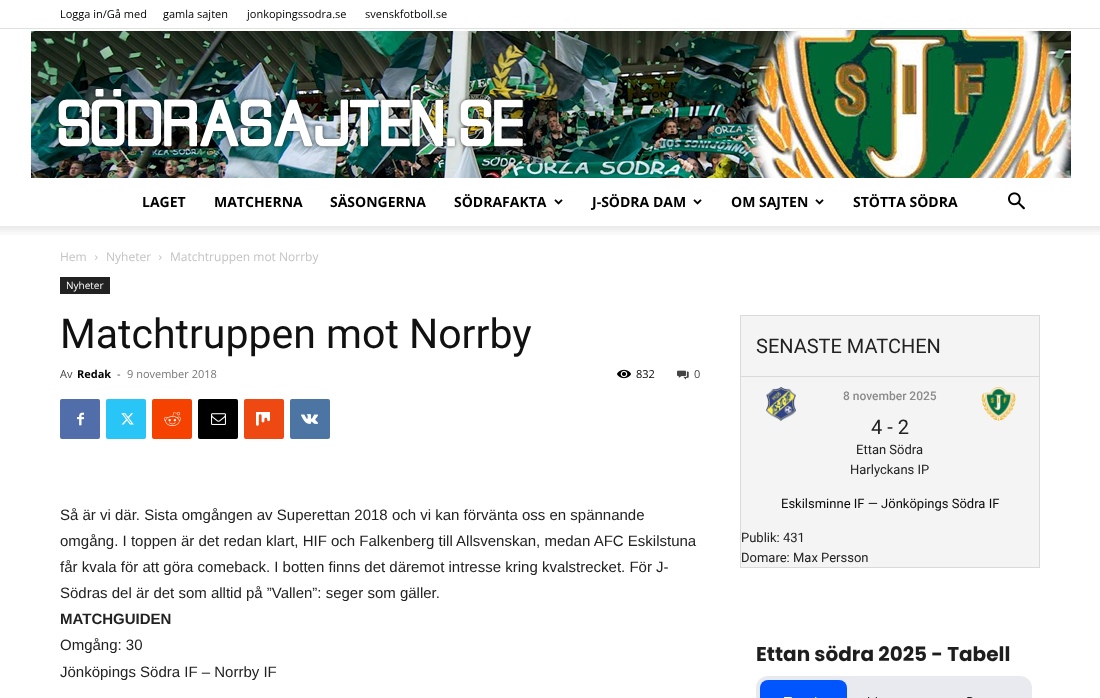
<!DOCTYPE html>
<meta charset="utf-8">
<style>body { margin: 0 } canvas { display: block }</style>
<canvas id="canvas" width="1100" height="698"></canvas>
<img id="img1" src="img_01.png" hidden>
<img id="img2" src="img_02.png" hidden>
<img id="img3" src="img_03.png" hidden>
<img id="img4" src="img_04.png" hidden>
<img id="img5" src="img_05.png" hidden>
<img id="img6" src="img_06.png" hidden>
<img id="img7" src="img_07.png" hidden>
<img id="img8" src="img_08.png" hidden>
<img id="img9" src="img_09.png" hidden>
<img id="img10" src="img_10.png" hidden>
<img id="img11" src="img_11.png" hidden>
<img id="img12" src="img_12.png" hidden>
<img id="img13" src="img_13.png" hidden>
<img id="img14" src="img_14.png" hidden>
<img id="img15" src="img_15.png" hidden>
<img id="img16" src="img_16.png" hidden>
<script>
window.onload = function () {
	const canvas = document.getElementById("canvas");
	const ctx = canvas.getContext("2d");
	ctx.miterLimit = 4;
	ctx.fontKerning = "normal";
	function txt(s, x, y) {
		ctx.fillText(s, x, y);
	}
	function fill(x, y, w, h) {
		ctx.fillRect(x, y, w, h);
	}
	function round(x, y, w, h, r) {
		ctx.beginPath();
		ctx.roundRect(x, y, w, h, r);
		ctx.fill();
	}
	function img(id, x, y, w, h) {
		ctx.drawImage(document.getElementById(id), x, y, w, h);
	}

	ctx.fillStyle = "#FFFFFF";
	fill(0, 0, 1100, 698);
	ctx.fillStyle = "#E0E0E0";
	fill(0, 28, 1100, 1);
	img("img1", 31, 30, 1040, 148);
	img("img2", 554, 199, 9, 6);
	img("img2", 693, 199, 9, 6);
	img("img2", 815, 199, 9, 6);
	img("img3", 1008, 192, 17, 18);
	img("img4", 0, 226, 1100, 9);
	img("img5", 95, 255, 3, 5);
	img("img5", 159, 255, 3, 5);
	ctx.fillStyle = "#222222";
	fill(60, 277, 50, 17);
	img("img6", 617, 369, 14, 10);
	img("img7", 677, 370, 12, 10);
	ctx.fillStyle = "#516EAB";
	round(60, 399, 40, 40, 2);
	img("img8", 77, 412, 7, 14);
	ctx.fillStyle = "#29C5F6";
	round(106, 399, 40, 40, 2);
	img("img9", 121, 413, 13, 12);
	ctx.fillStyle = "#F54200";
	round(152, 399, 40, 40, 2);
	img("img10", 164, 412, 17, 14);
	ctx.fillStyle = "#000000";
	round(198, 399, 40, 40, 2);
	img("img11", 211, 413, 15, 12);
	ctx.fillStyle = "#EE4813";
	round(244, 399, 40, 40, 2);
	img("img12", 256, 412, 14, 14);
	ctx.fillStyle = "#4C75A3";
	round(290, 399, 40, 40, 2);
	img("img13", 301, 414, 17, 10);
	ctx.fillStyle = "#F4F4F4";
	fill(741, 316, 298, 60);
	ctx.fillStyle = "#DADADA";
	fill(740, 315, 300, 1);
	fill(1039, 315, 1, 61);
	fill(740, 315, 1, 61);
	ctx.fillStyle = "#F4F4F4";
	fill(741, 377, 298, 190);
	ctx.fillStyle = "#DADADA";
	fill(740, 376, 300, 1);
	fill(1039, 376, 1, 192);
	fill(740, 567, 300, 1);
	fill(740, 376, 1, 192);
	img("img14", 766, 387, 30, 34);
	img("img15", 981, 387, 35, 34);
	img("img16", 756, 645, 276, 53);
	ctx.font = "11px Open Sans";
	ctx.fillStyle = "#000000";
	txt("Logga in/Gå med", 60, 18);
	txt("gamla sajten", 163, 18);
	txt("jonkopingssodra.se", 247, 18);
	txt("svenskfotboll.se", 365, 18);
	ctx.font = "bold 14px Open Sans";
	txt("LAGET", 142, 207);
	txt("MATCHERNA", 214, 207);
	txt("SÄSONGERNA", 330, 207);
	txt("SÖDRAFAKTA", 454, 207);
	txt("J-SÖDRA DAM", 592, 207);
	txt("OM SAJTEN", 731, 207);
	txt("STÖTTA SÖDRA", 853, 207);
	ctx.font = "12px Open Sans";
	ctx.fillStyle = "#C3C3C3";
	txt("Hem", 60, 261);
	txt("Nyheter", 106, 261);
	txt("Matchtruppen mot Norrby", 170, 261);
	ctx.font = "10px Open Sans";
	ctx.fillStyle = "#FFFFFF";
	txt("Nyheter", 66, 289);
	ctx.font = "41px Roboto";
	ctx.fillStyle = "#111111";
	txt("Matchtruppen mot Norrby", 60, 348);
	ctx.font = "11px Open Sans";
	ctx.fillStyle = "#444444";
	txt("Av", 60, 378);
	ctx.font = "bold 11px Open Sans";
	ctx.fillStyle = "#000000";
	txt("Redak", 77, 378);
	ctx.font = "11px Open Sans";
	ctx.fillStyle = "#444444";
	txt("-", 117, 378);
	ctx.fillStyle = "#767676";
	txt("9 november 2018", 127, 378);
	ctx.fillStyle = "#000000";
	txt("832", 636, 378);
	ctx.fillStyle = "#444444";
	txt("0", 694, 378);
	ctx.font = "15px Liberation Sans";
	ctx.fillStyle = "#222222";
	txt("Så är vi där. Sista omgången av Superettan 2018 och vi kan förvänta oss en spännande", 60, 520);
	txt("omgång. I toppen är det redan klart, HIF och Falkenberg till Allsvenskan, medan AFC Eskilstuna", 60, 546);
	txt("får kvala för att göra comeback. I botten finns det däremot intresse kring kvalstrecket. För J-", 60, 572);
	txt("Södras del är det som alltid på ”Vallen”: seger som gäller.", 60, 598);
	ctx.font = "bold 15px Liberation Sans";
	txt("MATCHGUIDEN", 60, 624);
	ctx.font = "15px Liberation Sans";
	txt("Omgång: 30", 60, 650);
	txt("Jönköpings Södra IF – Norrby IF", 60, 677);
	ctx.font = "20px Roboto";
	txt("SENASTE MATCHEN", 756, 353);
	ctx.font = "500 12px Roboto";
	ctx.fillStyle = "#8B8B8B";
	txt("8 november 2025", 843, 400);
	ctx.font = "20px Roboto";
	ctx.fillStyle = "#222222";
	txt("4 - 2", 871, 434);
	ctx.font = "13px Roboto";
	txt("Ettan Södra", 856, 454);
	txt("Harlyckans IP", 850, 474);
	ctx.fillStyle = "#0A0909";
	txt("Eskilsminne IF — Jönköpings Södra IF", 781, 508);
	ctx.fillStyle = "#222222";
	txt("Publik: 431", 741, 542);
	txt("Domare: Max Persson", 741, 562);
};
</script>
